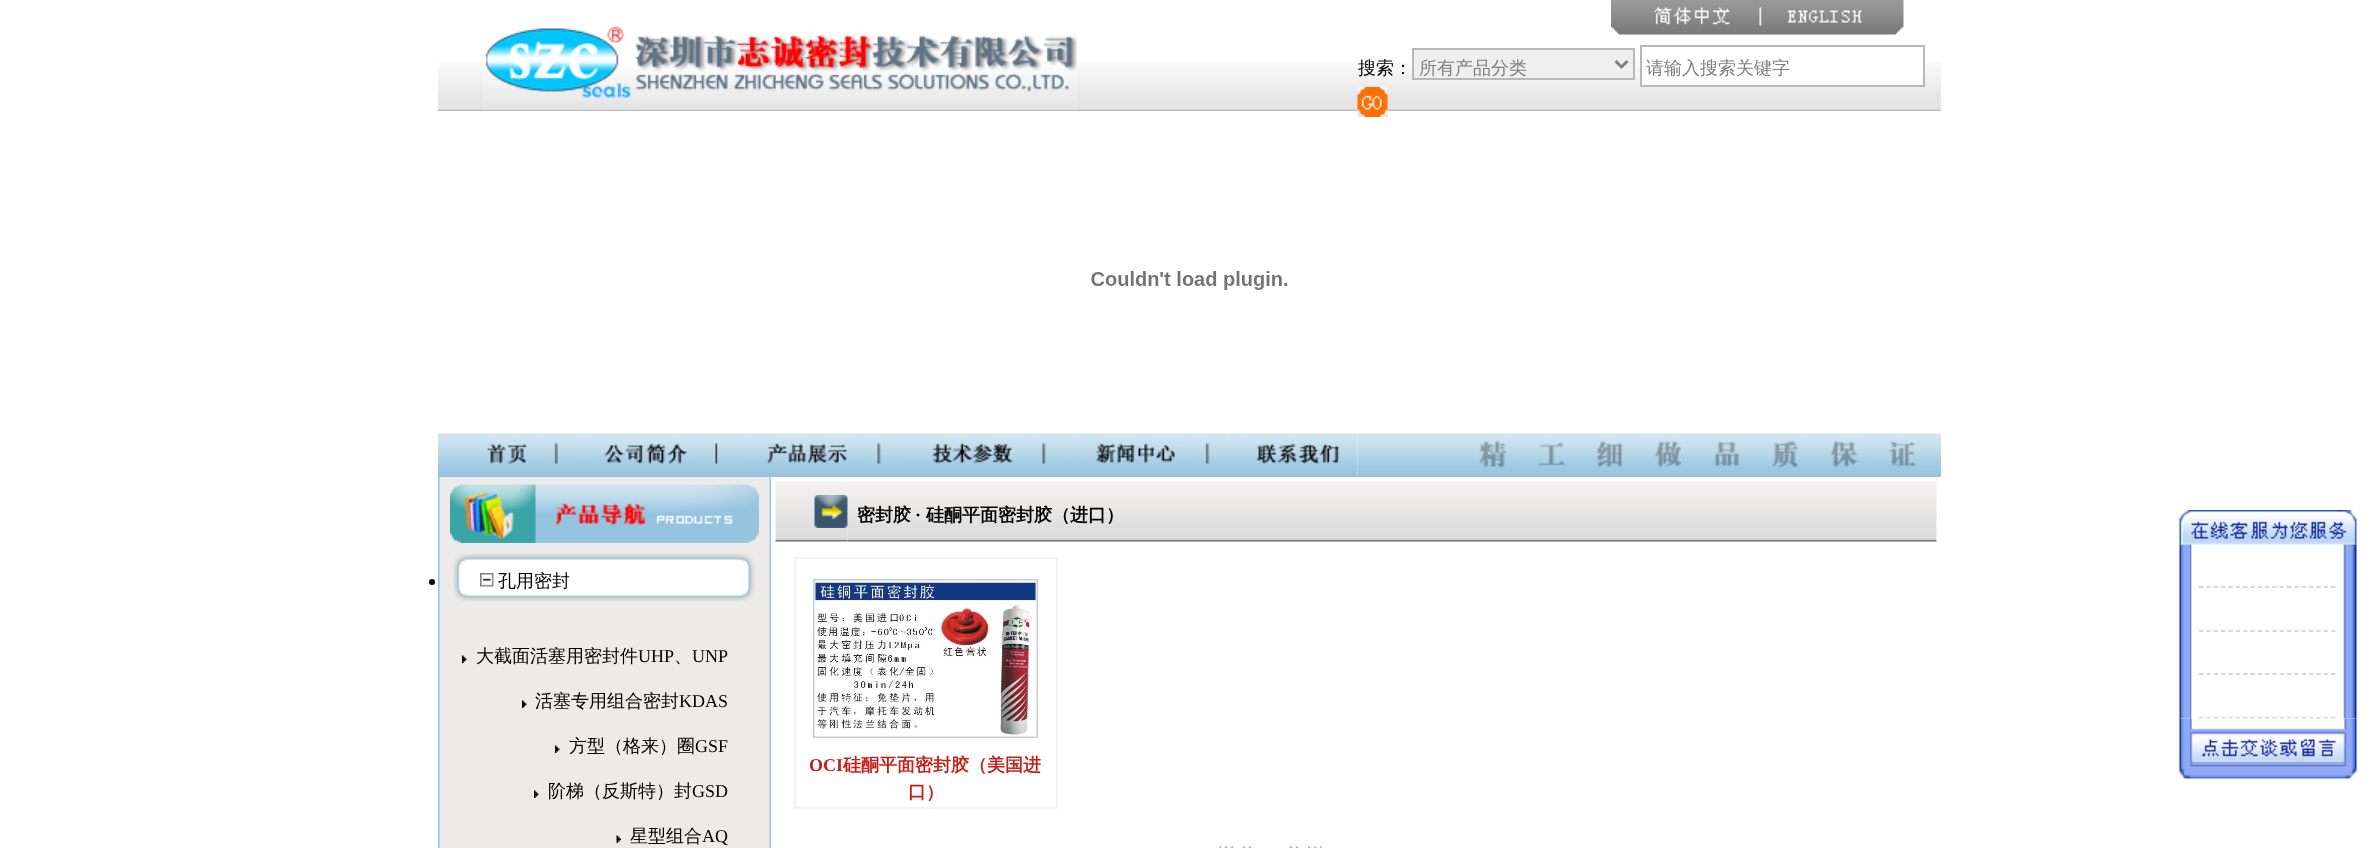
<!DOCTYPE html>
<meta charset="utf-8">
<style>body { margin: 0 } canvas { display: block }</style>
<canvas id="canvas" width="2378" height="848"></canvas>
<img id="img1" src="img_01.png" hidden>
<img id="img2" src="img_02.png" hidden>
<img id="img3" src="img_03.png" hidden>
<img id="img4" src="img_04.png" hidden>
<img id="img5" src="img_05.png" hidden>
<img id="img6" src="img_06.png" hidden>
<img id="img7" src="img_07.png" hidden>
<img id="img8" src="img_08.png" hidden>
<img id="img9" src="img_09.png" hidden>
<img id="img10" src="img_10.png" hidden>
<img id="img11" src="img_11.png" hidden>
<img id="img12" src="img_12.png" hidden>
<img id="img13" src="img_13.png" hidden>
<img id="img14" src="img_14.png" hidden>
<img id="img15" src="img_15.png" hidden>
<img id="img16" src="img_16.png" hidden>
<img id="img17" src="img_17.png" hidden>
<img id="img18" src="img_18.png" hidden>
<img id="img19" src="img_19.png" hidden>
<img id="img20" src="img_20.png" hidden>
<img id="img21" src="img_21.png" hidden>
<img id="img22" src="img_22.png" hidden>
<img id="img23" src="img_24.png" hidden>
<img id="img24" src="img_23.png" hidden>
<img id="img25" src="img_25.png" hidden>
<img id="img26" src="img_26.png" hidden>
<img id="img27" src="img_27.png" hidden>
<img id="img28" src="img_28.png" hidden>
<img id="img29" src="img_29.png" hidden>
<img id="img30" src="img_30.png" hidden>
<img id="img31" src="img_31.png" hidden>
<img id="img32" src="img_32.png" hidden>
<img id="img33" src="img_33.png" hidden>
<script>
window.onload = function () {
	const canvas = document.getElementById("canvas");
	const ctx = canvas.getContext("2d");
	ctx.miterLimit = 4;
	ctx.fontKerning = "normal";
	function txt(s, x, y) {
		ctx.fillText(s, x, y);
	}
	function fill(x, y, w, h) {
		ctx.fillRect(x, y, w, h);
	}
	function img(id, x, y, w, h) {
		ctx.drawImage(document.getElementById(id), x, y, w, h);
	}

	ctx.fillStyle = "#FFFFFF";
	fill(0, 0, 2378, 848);
	img("img1", 438, 62, 1503, 49);
	img("img2", 1611, 0, 293, 35);
	img("img3", 483, 26, 594, 84);
	ctx.fillStyle = "#EFEFEF";
	ctx.beginPath();
	ctx.rect(1413, 49, 221, 30);
	ctx.fill();
	ctx.strokeStyle = "#B8B8B8";
	ctx.lineWidth = 2;
	ctx.stroke();
	ctx.beginPath();
	ctx.moveTo(1615.5, 61);
	ctx.lineTo(1621.5, 67);
	ctx.lineTo(1627.5, 61);
	ctx.strokeStyle = "#7F7F7F";
	ctx.lineWidth = 3;
	ctx.stroke();
	ctx.fillStyle = "#FFFFFF";
	fill(1642, 62, 281, 23);
	ctx.strokeStyle = "#B8B8B8";
	ctx.lineWidth = 2;
	ctx.strokeRect(1641, 46, 283, 40);
	img("img4", 1357, 87, 31, 30);
	img("img5", 1091, 271, 197, 19);
	img("img6", 438, 433, 920, 44);
	img("img7", 447, 433, 111, 31);
	img("img8", 576, 433, 143, 31);
	img("img9", 739, 433, 143, 31);
	img("img10", 904, 433, 143, 31);
	img("img11", 1068, 433, 143, 31);
	img("img12", 1230, 433, 119, 31);
	img("img13", 1357, 433, 584, 44);
	img("img14", 1479, 433, 440, 35);
	img("img15", 438, 477, 333, 371);
	img("img16", 450, 484, 309, 59);
	img("img17", 453, 553, 302, 49);
	ctx.fillStyle = "#000000";
	ctx.beginPath();
	ctx.arc(432, 582, 3, 0, Math.PI * 2);
	ctx.fill();
	img("img18", 480, 573, 14, 14);
	img("img19", 462, 655, 5, 8);
	img("img19", 522, 700, 5, 8);
	img("img20", 555, 745, 5, 8);
	img("img20", 534, 790, 5, 8);
	img("img21", 616, 835, 5, 8);
	img("img22", 775, 481, 73, 61);
	img("img23", 847, 481, 1090, 61);
	img("img24", 814, 495, 34, 33);
	ctx.strokeStyle = "#F2F3F5";
	ctx.strokeRect(795, 558, 262, 250);
	ctx.strokeStyle = "#CCCCCC";
	ctx.strokeRect(814, 580, 223, 157);
	img("img25", 814, 580, 223, 157);
	img("img26", 1219, 846, 14, 2);
	img("img27", 1242, 846, 9, 2);
	img("img28", 1290, 846, 10, 2);
	img("img29", 1308, 846, 14, 2);
	img("img30", 2179, 510, 178, 35);
	img("img31", 2179, 544, 13, 175);
	ctx.beginPath();
	ctx.moveTo(2199, 587);
	ctx.lineTo(2335.5, 587);
	ctx.lineWidth = 1.5;
	ctx.setLineDash([4.5, 2.83]);
	ctx.stroke();
	ctx.beginPath();
	ctx.moveTo(2199, 631);
	ctx.lineTo(2335.5, 631);
	ctx.stroke();
	ctx.beginPath();
	ctx.moveTo(2199, 674);
	ctx.lineTo(2335.5, 674);
	ctx.stroke();
	ctx.beginPath();
	ctx.moveTo(2199, 718);
	ctx.lineTo(2335.5, 718);
	ctx.stroke();
	img("img32", 2343, 544, 14, 175);
	img("img33", 2179, 718, 178, 61);
	ctx.font = "500 18px WenQuanYi Zen Hei";
	txt("搜索：", 1358, 74);
	ctx.fillStyle = "#7F7F7F";
	txt("所有产品分类", 1419, 74);
	txt("请输入搜索关键字", 1646, 74);
	ctx.fillStyle = "#000000";
	txt("孔用密封", 498, 587);
	txt("大截面活塞用密封件", 476, 662);
	ctx.font = "18px Liberation Serif";
	txt("UHP", 638, 662);
	ctx.font = "500 18px WenQuanYi Zen Hei";
	txt("、", 674, 662);
	ctx.font = "18px Liberation Serif";
	txt("UNP", 692, 662);
	ctx.font = "500 18px WenQuanYi Zen Hei";
	txt("活塞专用组合密封", 535, 707);
	ctx.font = "18px Liberation Serif";
	txt("KDAS", 679, 707);
	ctx.font = "500 18px WenQuanYi Zen Hei";
	txt("方型（格来）圈", 569, 752);
	ctx.font = "18px Liberation Serif";
	txt("GSF", 695, 752);
	ctx.font = "500 18px WenQuanYi Zen Hei";
	txt("阶梯（反斯特）封", 548, 797);
	ctx.font = "18px Liberation Serif";
	txt("GSD", 692, 797);
	ctx.font = "500 18px WenQuanYi Zen Hei";
	txt("星型组合", 630, 842);
	ctx.font = "18px Liberation Serif";
	txt("AQ", 702, 842);
	ctx.font = "bold 18px WenQuanYi Zen Hei";
	txt("密封胶", 857, 521);
	ctx.font = "bold 18px Liberation Serif";
	txt("·", 915, 521);
	ctx.font = "bold 18px WenQuanYi Zen Hei";
	txt("硅酮平面密封胶（进口）", 926, 521);
	ctx.font = "bold 18px Liberation Serif";
	ctx.fillStyle = "#C4211B";
	txt("OCI", 809, 771);
	ctx.font = "bold 18px WenQuanYi Zen Hei";
	txt("硅酮平面密封胶（美国进", 843, 771);
	txt("口）", 908, 798);
};
</script>
